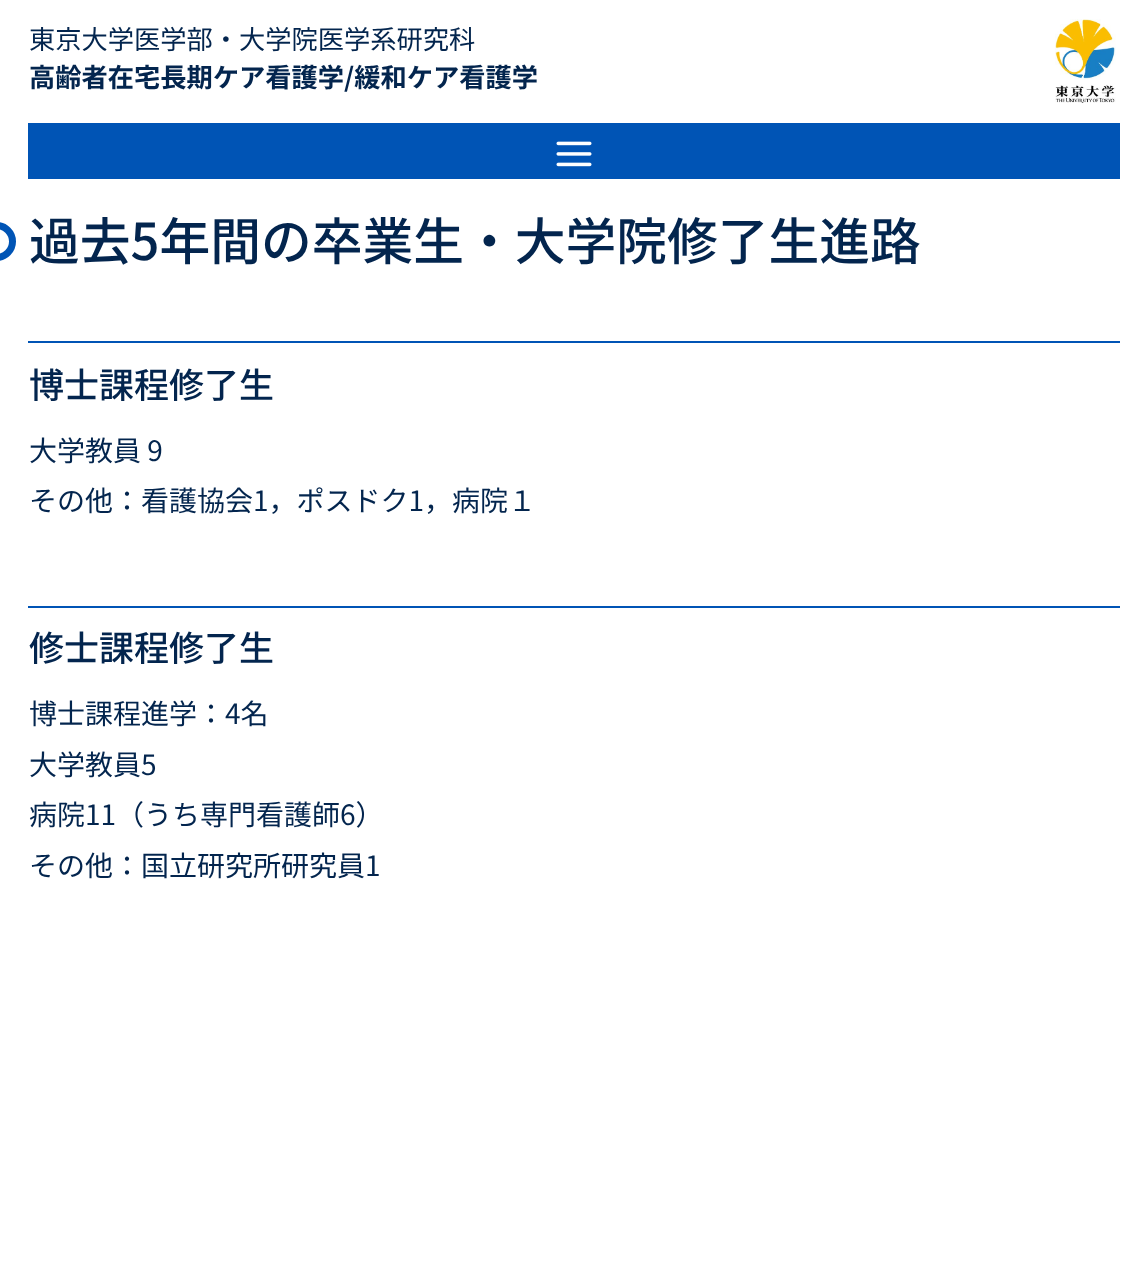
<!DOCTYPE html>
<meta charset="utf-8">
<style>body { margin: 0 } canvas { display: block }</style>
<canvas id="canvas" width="1147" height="1268"></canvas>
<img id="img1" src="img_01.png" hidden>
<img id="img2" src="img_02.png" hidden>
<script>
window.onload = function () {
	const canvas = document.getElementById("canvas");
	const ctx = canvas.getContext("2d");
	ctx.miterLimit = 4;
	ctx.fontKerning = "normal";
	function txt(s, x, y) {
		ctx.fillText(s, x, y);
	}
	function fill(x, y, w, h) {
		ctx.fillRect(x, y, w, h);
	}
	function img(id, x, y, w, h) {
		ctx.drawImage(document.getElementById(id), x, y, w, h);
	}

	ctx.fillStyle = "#FFFFFF";
	fill(0, 0, 1147, 1268);
	img("img1", 1055, 19, 61, 84);
	ctx.fillStyle = "#0054B5";
	fill(28, 123, 1092, 56);
	img("img2", 556, 141, 36, 26);
	ctx.beginPath();
	ctx.arc(-3.5, 241.5, 16, 0, Math.PI * 2);
	ctx.strokeStyle = "#0054B5";
	ctx.lineWidth = 7;
	ctx.stroke();
	fill(28, 341, 1092, 2);
	fill(28, 606, 1092, 2);
	ctx.font = "26.25px Noto Sans JP";
	ctx.fillStyle = "#03254E";
	txt("東京大学医学部・大学院医学系研究科", 29, 49);
	ctx.font = "bold 26.25px Noto Sans JP";
	txt("高齢者在宅長期ケア看護学/緩和ケア看護学", 29, 87);
	ctx.font = "500 50.75px Noto Sans JP";
	txt("過去5年間の卒業生・大学院修了生進路", 29, 260);
	ctx.font = "500 35px Noto Sans JP";
	txt("博士課程修了生", 29, 398);
	ctx.font = "28px Noto Sans JP";
	txt("大学教員 9", 29, 461);
	txt("その他：看護協会1，ポスドク1，病院１", 29, 511);
	ctx.font = "500 35px Noto Sans JP";
	txt("修士課程修了生", 29, 661);
	ctx.font = "28px Noto Sans JP";
	txt("博士課程進学：4名", 29, 724);
	txt("大学教員5", 29, 775);
	txt("病院11（うち専門看護師6）", 29, 825);
	txt("その他：国立研究所研究員1", 29, 876);
};
</script>
